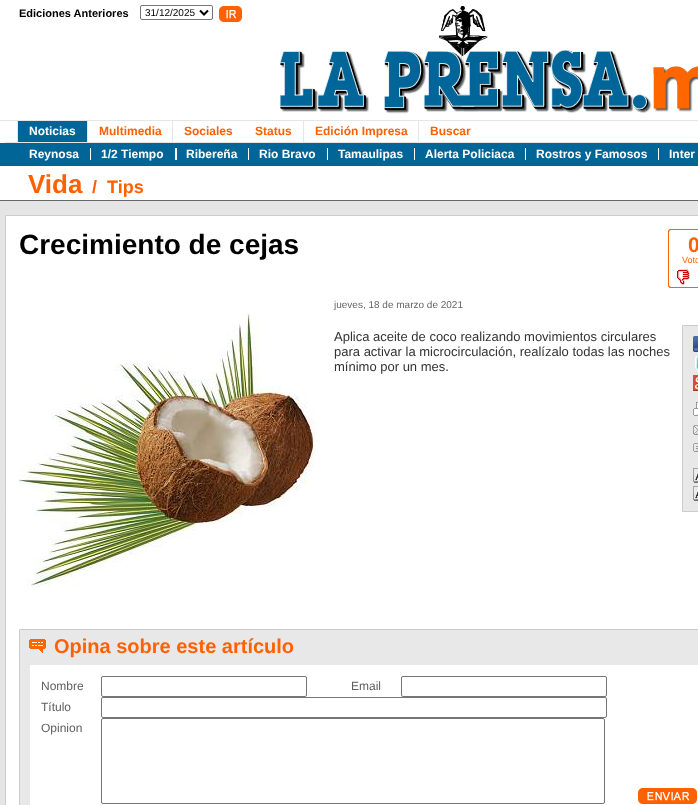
<!DOCTYPE html>
<meta charset="utf-8">
<style>body { margin: 0 } canvas { display: block }</style>
<canvas id="canvas" width="698" height="805"></canvas>
<img id="img1" src="img_01.png" hidden>
<img id="img2" src="img_02.png" hidden>
<img id="img3" src="img_03.png" hidden>
<img id="img4" src="img_04.png" hidden>
<img id="img5" src="img_05.png" hidden>
<img id="img6" src="img_06.png" hidden>
<img id="img7" src="img_07.png" hidden>
<img id="img8" src="img_08.png" hidden>
<img id="img9" src="img_09.png" hidden>
<img id="img10" src="img_10.png" hidden>
<img id="img11" src="img_11.png" hidden>
<img id="img12" src="img_12.png" hidden>
<img id="img13" src="img_13.png" hidden>
<img id="img14" src="img_14.png" hidden>
<img id="img15" src="img_15.png" hidden>
<img id="img16" src="img_16.png" hidden>
<script>
window.onload = function () {
	const canvas = document.getElementById("canvas");
	const ctx = canvas.getContext("2d");
	ctx.miterLimit = 4;
	ctx.fontKerning = "normal";
	function txt(s, x, y) {
		ctx.fillText(s, x, y);
	}
	function fill(x, y, w, h) {
		ctx.fillRect(x, y, w, h);
	}
	function img(id, x, y, w, h) {
		ctx.drawImage(document.getElementById(id), x, y, w, h);
	}

	ctx.fillStyle = "#E5E5E5";
	fill(0, 0, 698, 805);
	img("img1", 0, 0, 5, 201);
	ctx.fillStyle = "#FFFFFF";
	fill(5, 0, 693, 142);
	ctx.beginPath();
	ctx.roundRect(140.5, 5.5, 72, 14, 1.5);
	ctx.strokeStyle = "#767676";
	ctx.stroke();
	ctx.beginPath();
	ctx.moveTo(200, 10.5);
	ctx.lineTo(204, 14.5);
	ctx.lineTo(208, 10.5);
	ctx.strokeStyle = "#000000";
	ctx.lineWidth = 2;
	ctx.stroke();
	img("img2", 219, 6, 23, 16);
	img("img3", 280, 6, 418, 108);
	ctx.fillStyle = "#E6E6E6";
	fill(5, 120, 693, 1);
	fill(17, 121, 1, 21);
	ctx.fillStyle = "#016597";
	fill(18, 121, 69, 21);
	fill(5, 143, 693, 23);
	ctx.fillStyle = "#FFFFFF";
	fill(90, 148, 1, 12);
	fill(175, 148, 2, 12);
	fill(248, 148, 1, 12);
	fill(327, 148, 1, 12);
	fill(414, 148, 1, 12);
	fill(525, 148, 1, 12);
	fill(658, 148, 1, 12);
	ctx.fillStyle = "#E6E6E6";
	fill(87, 121, 1, 21);
	fill(172, 121, 1, 21);
	fill(303, 121, 1, 21);
	fill(418, 121, 1, 21);
	ctx.fillStyle = "#FFFFFF";
	fill(5, 166, 693, 34);
	ctx.fillStyle = "#666666";
	fill(5, 200, 693, 1);
	ctx.fillStyle = "#FFFFFF";
	ctx.beginPath();
	ctx.rect(5.5, 215.5, 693, 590);
	ctx.fill();
	ctx.strokeStyle = "#CCCCCC";
	ctx.lineWidth = 1;
	ctx.stroke();
	img("img4", 668, 229, 30, 59);
	img("img5", 677, 269, 13, 16);
	img("img6", 19, 313, 296, 274);
	ctx.fillStyle = "#E8E8E8";
	ctx.beginPath();
	ctx.rect(682.5, 325.5, 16, 186);
	ctx.fill();
	ctx.stroke();
	img("img7", 693, 336, 5, 16);
	img("img8", 695, 356, 3, 15);
	img("img9", 693, 375, 5, 16);
	img("img10", 693, 402, 5, 14);
	img("img11", 693, 425, 5, 10);
	img("img12", 693, 443, 5, 9);
	img("img13", 693, 468, 5, 15);
	img("img14", 693, 486, 5, 15);
	ctx.beginPath();
	ctx.rect(19.5, 629.5, 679, 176);
	ctx.fill();
	ctx.stroke();
	img("img15", 29, 639, 17, 14);
	ctx.fillStyle = "#FFFFFF";
	fill(30, 665, 668, 140);
	ctx.beginPath();
	ctx.roundRect(101.5, 676.5, 205, 20, 1.5);
	ctx.strokeStyle = "#767676";
	ctx.stroke();
	ctx.beginPath();
	ctx.roundRect(401.5, 676.5, 205, 20, 1.5);
	ctx.stroke();
	ctx.beginPath();
	ctx.roundRect(101.5, 697.5, 505, 20, 1.5);
	ctx.stroke();
	ctx.beginPath();
	ctx.roundRect(101.5, 718.5, 503, 85, 1.5);
	ctx.stroke();
	img("img16", 638, 788, 59, 16);
	ctx.font = "bold 11px Liberation Sans";
	ctx.fillStyle = "#000000";
	txt("Ediciones Anteriores", 19, 17);
	ctx.font = "10px Liberation Sans";
	txt("31/12/2025", 145, 16);
	ctx.font = "bold 12px Liberation Sans";
	ctx.fillStyle = "#FFFFFF";
	txt("Noticias", 29, 135);
	txt("Reynosa", 29, 158);
	txt("1/2 Tiempo", 101, 158);
	txt("Ribereña", 186, 158);
	txt("Rio Bravo", 259, 158);
	txt("Tamaulipas", 338, 158);
	txt("Alerta Policiaca", 425, 158);
	txt("Rostros y Famosos", 536, 158);
	txt("Inter", 669, 158);
	ctx.fillStyle = "#FF6000";
	txt("Multimedia", 99, 135);
	txt("Sociales", 184, 135);
	txt("Status", 255, 135);
	txt("Edición Impresa", 315, 135);
	txt("Buscar", 430, 135);
	ctx.font = "bold 26px Liberation Sans";
	txt("Vida", 28, 193);
	ctx.font = "bold 18px Liberation Sans";
	txt("/", 92, 193);
	txt("Tips", 107, 193);
	ctx.font = "bold 28px Liberation Sans";
	ctx.fillStyle = "#000000";
	txt("Crecimiento de cejas", 19, 254);
	ctx.font = "bold 21px Liberation Sans";
	ctx.fillStyle = "#FF6000";
	txt("0", 688, 252);
	ctx.font = "9px Liberation Sans";
	txt("Voto", 682, 263);
	ctx.font = "10px Liberation Sans";
	ctx.fillStyle = "#666666";
	txt("jueves, 18 de marzo de 2021", 334, 308);
	ctx.font = "13px Liberation Sans";
	ctx.fillStyle = "#333333";
	txt("Aplica aceite de coco realizando movimientos circulares", 334, 341);
	txt("para activar la microcirculación, realízalo todas las noches", 334, 356);
	txt("mínimo por un mes.", 334, 371);
	ctx.font = "bold 20px Liberation Sans";
	ctx.fillStyle = "#FF6000";
	txt("Opina sobre este artículo", 54, 653);
	ctx.font = "12px Liberation Sans";
	ctx.fillStyle = "#606060";
	txt("Nombre", 41, 690);
	txt("Email", 351, 690);
	txt("Título", 41, 711);
	txt("Opinion", 41, 732);
};
</script>
